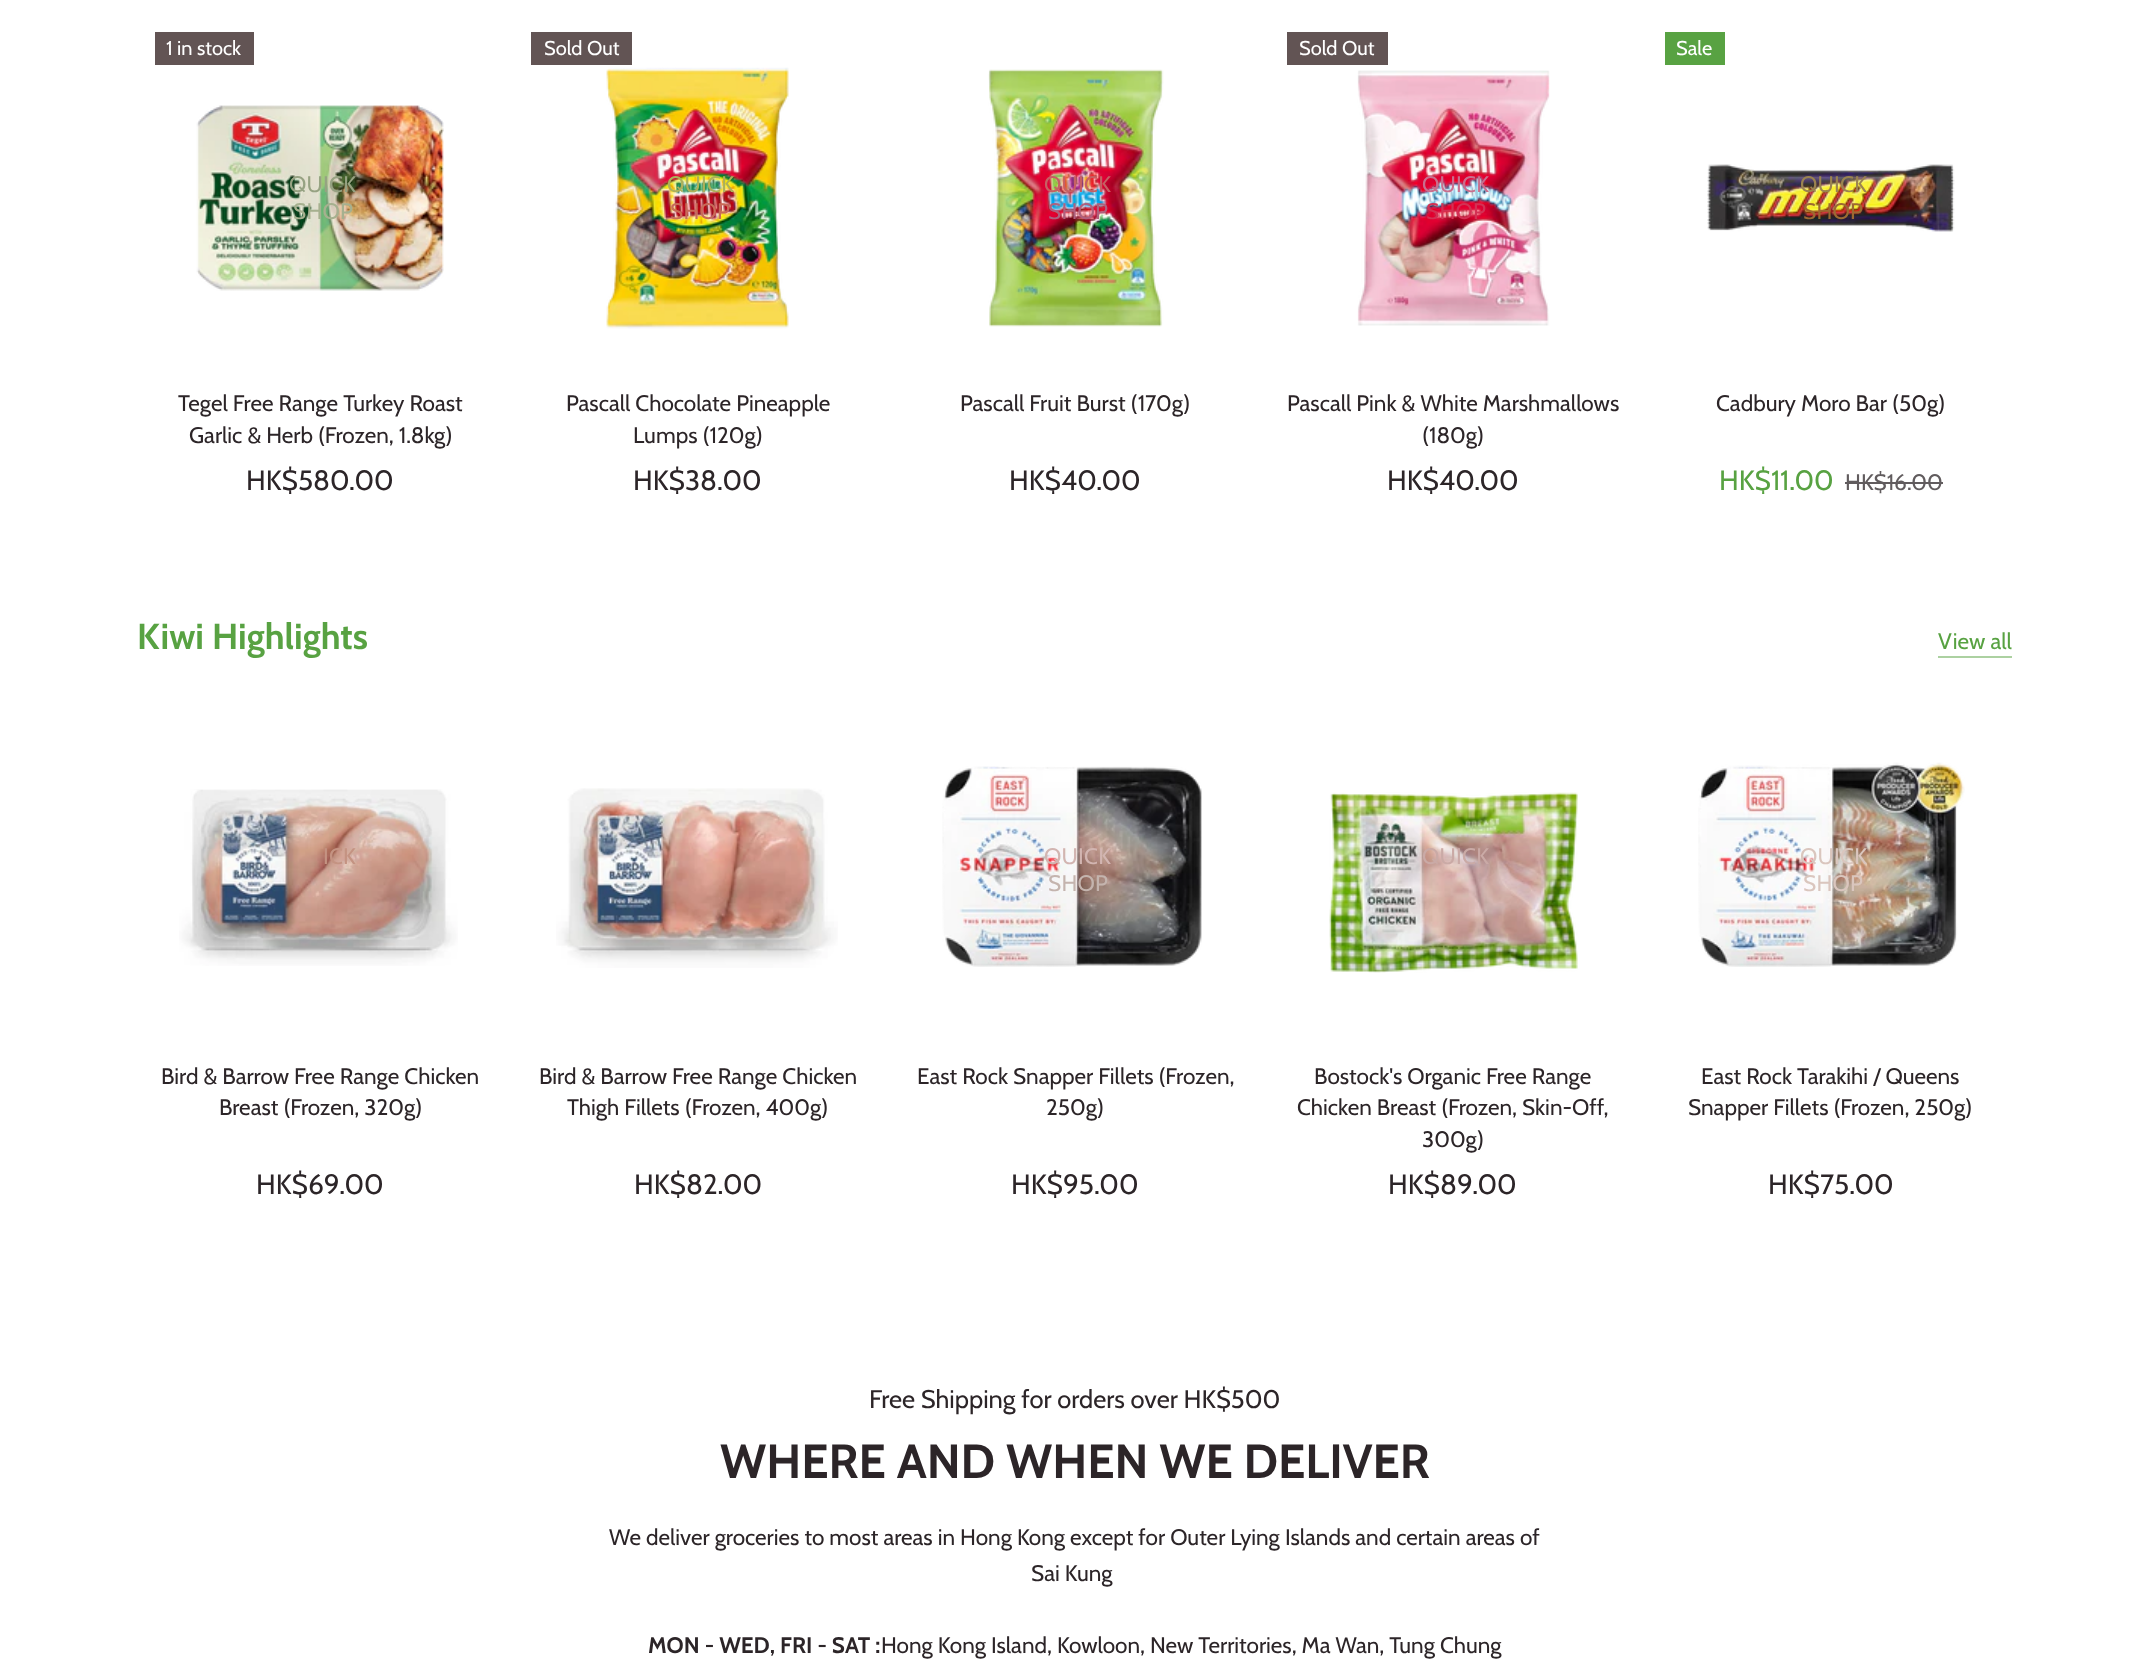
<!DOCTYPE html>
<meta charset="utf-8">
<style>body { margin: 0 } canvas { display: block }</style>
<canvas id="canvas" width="2149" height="1663"></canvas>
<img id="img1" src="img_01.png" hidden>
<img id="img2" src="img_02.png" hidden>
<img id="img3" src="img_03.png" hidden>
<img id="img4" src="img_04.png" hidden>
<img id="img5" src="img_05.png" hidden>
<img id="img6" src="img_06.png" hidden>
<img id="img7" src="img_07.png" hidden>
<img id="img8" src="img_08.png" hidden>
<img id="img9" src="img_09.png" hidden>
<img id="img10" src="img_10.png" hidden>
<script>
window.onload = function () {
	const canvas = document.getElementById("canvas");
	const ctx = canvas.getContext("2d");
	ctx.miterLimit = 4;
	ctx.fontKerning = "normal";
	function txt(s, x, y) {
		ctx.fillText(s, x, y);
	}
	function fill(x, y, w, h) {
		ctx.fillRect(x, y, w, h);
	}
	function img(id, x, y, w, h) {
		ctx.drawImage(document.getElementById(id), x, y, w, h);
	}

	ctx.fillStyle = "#FFFFFF";
	fill(0, 0, 2149, 1663);
	ctx.fillStyle = "#625454";
	fill(155, 32, 99, 33);
	img("img1", 196, 105, 248, 186);
	fill(531, 32, 101, 33);
	img("img2", 606, 67, 183, 262);
	img("img3", 988, 69, 176, 258);
	fill(1287, 32, 101, 33);
	img("img4", 1357, 70, 193, 256);
	ctx.fillStyle = "#58A242";
	fill(1665, 32, 60, 33);
	img("img5", 1707, 164, 248, 68);
	ctx.fillStyle = "#615C5E";
	fill(1845, 482, 98, 2);
	ctx.fillStyle = "#ACD1A1";
	fill(1938, 656, 74, 2);
	img("img6", 179, 789, 279, 177);
	img("img7", 556, 788, 282, 180);
	img("img8", 942, 766, 260, 201);
	img("img9", 1329, 792, 249, 181);
	img("img10", 1698, 762, 267, 205);
	ctx.font = "20px Cabin";
	ctx.fillStyle = "#FFFFFF";
	txt("1 in stock", 166, 55);
	ctx.letterSpacing = "0.25px";
	ctx.font = "22.5px Cabin";
	ctx.fillStyle = "#96A282";
	txt("QUICK", 289, 192);
	ctx.fillStyle = "#A6B08F";
	txt("SHOP", 293, 219);
	ctx.letterSpacing = "0px";
	ctx.fillStyle = "#2C2528";
	txt("Tegel Free Range Turkey Roast", 178, 411);
	txt("Garlic & Herb (Frozen, 1.8kg)", 189, 443);
	ctx.font = "28px Cabin";
	txt("HK$580.00", 246, 490);
	ctx.font = "20px Cabin";
	ctx.fillStyle = "#FFFFFF";
	txt("Sold Out", 544, 55);
	ctx.letterSpacing = "0.25px";
	ctx.font = "22.5px Cabin";
	ctx.fillStyle = "#ADB15A";
	txt("QUICK", 667, 192);
	ctx.fillStyle = "#C86B58";
	txt("SHOP", 670, 219);
	ctx.letterSpacing = "0px";
	ctx.fillStyle = "#2C2528";
	txt("Pascall Chocolate Pineapple", 566, 411);
	txt("Lumps (120g)", 633, 443);
	ctx.font = "28px Cabin";
	txt("HK$38.00", 633, 490);
	ctx.letterSpacing = "0.25px";
	ctx.font = "22.5px Cabin";
	ctx.fillStyle = "#C66063";
	txt("QUICK", 1044, 192);
	ctx.fillStyle = "#AE617E";
	txt("SHOP", 1048, 219);
	ctx.letterSpacing = "0px";
	ctx.fillStyle = "#2C2528";
	txt("Pascall Fruit Burst (170g)", 960, 411);
	ctx.font = "28px Cabin";
	txt("HK$40.00", 1009, 490);
	ctx.font = "20px Cabin";
	ctx.fillStyle = "#FFFFFF";
	txt("Sold Out", 1299, 55);
	ctx.letterSpacing = "0.25px";
	ctx.font = "22.5px Cabin";
	ctx.fillStyle = "#C96F8E";
	txt("QUICK", 1422, 192);
	ctx.fillStyle = "#D33154";
	txt("SHOP", 1426, 219);
	ctx.letterSpacing = "0px";
	ctx.fillStyle = "#2C2528";
	txt("Pascall Pink & White Marshmallows", 1287, 411);
	txt("(180g)", 1422, 443);
	ctx.font = "28px Cabin";
	txt("HK$40.00", 1387, 490);
	ctx.font = "20px Cabin";
	ctx.fillStyle = "#FFFFFF";
	txt("Sale", 1676, 55);
	ctx.letterSpacing = "0.25px";
	ctx.font = "22.5px Cabin";
	ctx.fillStyle = "#9B8350";
	txt("QUICK", 1800, 192);
	ctx.fillStyle = "#9C6932";
	txt("SHOP", 1803, 219);
	ctx.letterSpacing = "0px";
	ctx.fillStyle = "#2C2528";
	txt("Cadbury Moro Bar (50g)", 1716, 411);
	ctx.font = "28px Cabin";
	ctx.fillStyle = "#58A242";
	txt("HK$11.00", 1719, 490);
	ctx.font = "22.5px Cabin";
	ctx.fillStyle = "#615C5E";
	txt("HK$16.00", 1845, 490);
	ctx.font = "bold 36px Cabin";
	ctx.fillStyle = "#58A242";
	txt("Kiwi Highlights", 137, 649);
	ctx.font = "22.5px Cabin";
	txt("View all", 1938, 649);
	ctx.letterSpacing = "0.25px";
	ctx.fillStyle = "#C49382";
	txt("ICK", 323, 864);
	ctx.letterSpacing = "0px";
	ctx.fillStyle = "#2C2528";
	txt("Bird & Barrow Free Range Chicken", 161, 1084);
	txt("Breast (Frozen, 320g)", 219, 1115);
	ctx.font = "28px Cabin";
	txt("HK$69.00", 256, 1194);
	ctx.font = "22.5px Cabin";
	txt("Bird & Barrow Free Range Chicken", 539, 1084);
	txt("Thigh Fillets (Frozen, 400g)", 567, 1115);
	ctx.font = "28px Cabin";
	txt("HK$82.00", 634, 1194);
	ctx.letterSpacing = "0.25px";
	ctx.font = "22.5px Cabin";
	ctx.fillStyle = "#D2B5B1";
	txt("QUICK", 1044, 864);
	ctx.fillStyle = "#C4B4AE";
	txt("SHOP", 1048, 891);
	ctx.letterSpacing = "0px";
	ctx.fillStyle = "#2C2528";
	txt("East Rock Snapper Fillets (Frozen,", 917, 1084);
	txt("250g)", 1046, 1115);
	ctx.font = "28px Cabin";
	txt("HK$95.00", 1011, 1194);
	ctx.letterSpacing = "0.25px";
	ctx.font = "22.5px Cabin";
	ctx.fillStyle = "#CAAAA6";
	txt("QUICK", 1422, 864);
	ctx.letterSpacing = "0px";
	ctx.fillStyle = "#2C2528";
	txt("Bostock's Organic Free Range", 1314, 1084);
	txt("Chicken Breast (Frozen, Skin-Off,", 1297, 1115);
	txt("300g)", 1422, 1147);
	ctx.font = "28px Cabin";
	txt("HK$89.00", 1388, 1194);
	ctx.letterSpacing = "0.25px";
	ctx.font = "22.5px Cabin";
	ctx.fillStyle = "#DAC6BE";
	txt("QUICK", 1800, 864);
	txt("SHOP", 1803, 891);
	ctx.letterSpacing = "0px";
	ctx.fillStyle = "#2C2528";
	txt("East Rock Tarakihi / Queens", 1701, 1084);
	txt("Snapper Fillets (Frozen, 250g)", 1688, 1115);
	ctx.font = "28px Cabin";
	txt("HK$75.00", 1768, 1194);
	ctx.font = "25.5px Cabin";
	txt("Free Shipping for orders over HK$500", 869, 1408);
	ctx.font = "bold 48px Cabin";
	txt("WHERE AND WHEN WE DELIVER", 720, 1478);
	ctx.font = "22.5px Cabin";
	txt("We deliver groceries to most areas in Hong Kong except for Outer Lying Islands and certain areas of", 609, 1545);
	txt("Sai Kung", 1031, 1581);
	ctx.font = "bold 22.5px Cabin";
	txt("MON - WED, FRI - SAT :", 648, 1653);
	ctx.font = "22.5px Cabin";
	txt("Hong Kong Island, Kowloon, New Territories, Ma Wan, Tung Chung", 881, 1653);
};
</script>
